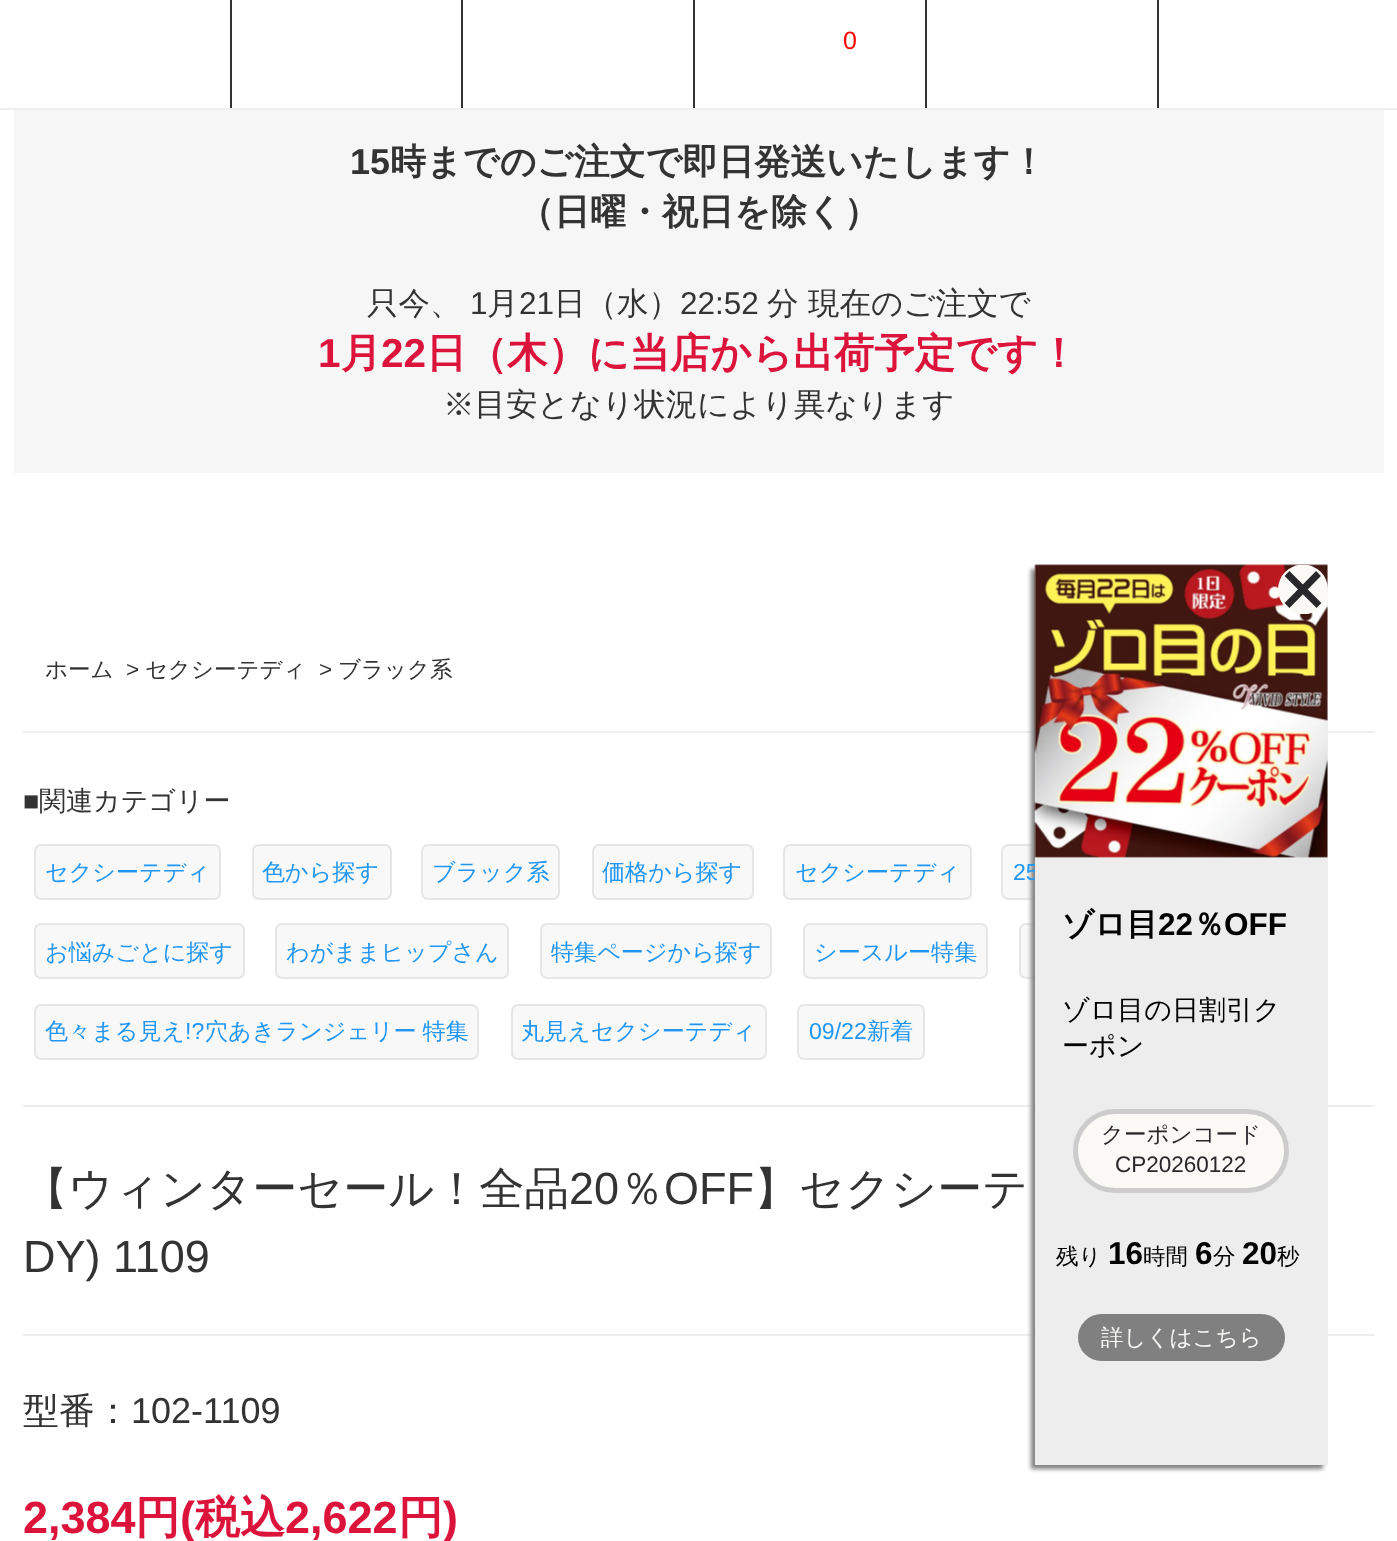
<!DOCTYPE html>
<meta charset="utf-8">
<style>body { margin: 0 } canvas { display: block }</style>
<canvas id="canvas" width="1397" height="1541"></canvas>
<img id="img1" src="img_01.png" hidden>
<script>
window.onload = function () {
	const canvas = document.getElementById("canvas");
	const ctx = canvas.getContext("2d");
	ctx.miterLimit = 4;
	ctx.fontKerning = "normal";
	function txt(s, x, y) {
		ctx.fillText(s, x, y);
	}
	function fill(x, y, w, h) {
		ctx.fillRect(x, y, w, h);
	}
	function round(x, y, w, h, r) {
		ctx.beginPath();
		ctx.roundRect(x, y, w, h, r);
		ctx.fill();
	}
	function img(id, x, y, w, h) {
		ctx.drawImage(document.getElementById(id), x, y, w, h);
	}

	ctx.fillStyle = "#FFFFFF";
	fill(0, 0, 1397, 1541);
	ctx.fillStyle = "#EEEEEE";
	fill(0, 108, 1397, 2);
	ctx.fillStyle = "#333333";
	fill(230, 0, 2, 108);
	fill(461, 0, 2, 108);
	fill(693, 0, 2, 108);
	fill(925, 0, 2, 108);
	fill(1157, 0, 2, 108);
	ctx.fillStyle = "#F6F6F6";
	fill(14, 110, 1370, 363);
	ctx.fillStyle = "#EEEEEE";
	fill(23, 731, 1352, 2);
	ctx.fillStyle = "#F8F8F8";
	ctx.beginPath();
	ctx.roundRect(35, 845, 185, 54, 6);
	ctx.fill();
	ctx.strokeStyle = "#E6E6E6";
	ctx.lineWidth = 2;
	ctx.stroke();
	ctx.beginPath();
	ctx.roundRect(253, 845, 138, 54, 6);
	ctx.fill();
	ctx.stroke();
	ctx.beginPath();
	ctx.roundRect(422, 845, 137, 54, 6);
	ctx.fill();
	ctx.stroke();
	ctx.beginPath();
	ctx.roundRect(593, 845, 160, 54, 6);
	ctx.fill();
	ctx.stroke();
	ctx.beginPath();
	ctx.roundRect(784, 845, 187, 54, 6);
	ctx.fill();
	ctx.stroke();
	ctx.beginPath();
	ctx.roundRect(1002, 845, 194, 54, 6);
	ctx.fill();
	ctx.stroke();
	ctx.beginPath();
	ctx.roundRect(35, 924, 209, 54, 6);
	ctx.fill();
	ctx.stroke();
	ctx.beginPath();
	ctx.roundRect(276, 924, 232, 54, 6);
	ctx.fill();
	ctx.stroke();
	ctx.beginPath();
	ctx.roundRect(541, 924, 230, 54, 6);
	ctx.fill();
	ctx.stroke();
	ctx.beginPath();
	ctx.roundRect(804, 924, 183, 54, 6);
	ctx.fill();
	ctx.stroke();
	ctx.beginPath();
	ctx.roundRect(1020, 924, 230, 54, 6);
	ctx.fill();
	ctx.stroke();
	ctx.beginPath();
	ctx.roundRect(35, 1005, 443, 54, 6);
	ctx.fill();
	ctx.stroke();
	ctx.beginPath();
	ctx.roundRect(512, 1005, 254, 54, 6);
	ctx.fill();
	ctx.stroke();
	ctx.beginPath();
	ctx.roundRect(798, 1005, 126, 54, 6);
	ctx.fill();
	ctx.stroke();
	ctx.fillStyle = "#EEEEEE";
	fill(23, 1105, 1352, 2);
	fill(23, 1334, 1352, 2);
	ctx.fillStyle = "#808080";
	ctx.filter = "blur(2px)";
	ctx.beginPath();
	ctx.rect(1031, 569, 292, 900);
	ctx.fill();
	ctx.filter = "none";
	ctx.font = "25px Liberation Sans";
	ctx.fillStyle = "#FF0000";
	txt("0", 843, 49);
	ctx.font = "bold 36px Liberation Sans";
	ctx.fillStyle = "#333333";
	txt("15", 350, 174);
	ctx.font = "bold 36px WenQuanYi Zen Hei";
	txt("時までのご注文で即日発送いたします！", 390, 174);
	txt("（日曜・祝日を除く）", 518, 224);
	ctx.font = "500 31.5px WenQuanYi Zen Hei";
	txt("只今、", 367, 314);
	ctx.font = "31.5px Liberation Sans";
	txt("1", 470, 314);
	ctx.font = "500 31.5px WenQuanYi Zen Hei";
	txt("月", 487, 314);
	ctx.font = "31.5px Liberation Sans";
	txt("21", 519, 314);
	ctx.font = "500 31.5px WenQuanYi Zen Hei";
	txt("日（水）", 554, 314);
	ctx.font = "31.5px Liberation Sans";
	txt("22:52", 680, 314);
	ctx.font = "500 31.5px WenQuanYi Zen Hei";
	txt("分 現在のご注文で", 767, 314);
	ctx.font = "bold 40.5px Liberation Sans";
	ctx.fillStyle = "#DC143C";
	txt("1", 318, 367);
	ctx.font = "bold 40.5px WenQuanYi Zen Hei";
	txt("月", 341, 367);
	ctx.font = "bold 40.5px Liberation Sans";
	txt("22", 381, 367);
	ctx.font = "bold 40.5px WenQuanYi Zen Hei";
	txt("日（木）に当店から出荷予定です！", 426, 367);
	ctx.font = "500 31.5px WenQuanYi Zen Hei";
	ctx.fillStyle = "#333333";
	txt("※目安となり状況により異なります", 443, 415);
	ctx.font = "500 22.5px WenQuanYi Zen Hei";
	txt("ホーム", 45, 677);
	ctx.font = "22.5px Liberation Sans";
	txt(">", 126, 677);
	ctx.font = "500 22.5px WenQuanYi Zen Hei";
	txt("セクシーテディ", 145, 677);
	ctx.font = "22.5px Liberation Sans";
	txt(">", 319, 677);
	ctx.font = "500 22.5px WenQuanYi Zen Hei";
	txt("ブラック系", 338, 677);
	ctx.font = "27px Liberation Sans";
	txt("■", 23, 810);
	ctx.font = "500 27px WenQuanYi Zen Hei";
	txt("関連カテゴリー", 39, 810);
	ctx.font = "500 23.1px WenQuanYi Zen Hei";
	ctx.fillStyle = "#2196F3";
	txt("セクシーテディ", 45, 880);
	txt("色から探す", 262, 880);
	txt("ブラック系", 432, 880);
	txt("価格から探す", 602, 880);
	txt("セクシーテディ", 795, 880);
	ctx.font = "23.1px Liberation Sans";
	txt("25", 1013, 880);
	ctx.font = "500 23.1px WenQuanYi Zen Hei";
	txt("お悩みごとに探す", 45, 960);
	txt("わがままヒップさん", 286, 960);
	txt("特集ページから探す", 551, 960);
	txt("シースルー特集", 814, 960);
	txt("色々まる見え", 45, 1039);
	ctx.font = "23.1px Liberation Sans";
	txt("!?", 185, 1039);
	ctx.wordSpacing = "-1px";
	ctx.font = "500 23.1px WenQuanYi Zen Hei";
	txt("穴あきランジェリー 特集", 205, 1039);
	ctx.wordSpacing = "0px";
	txt("丸見えセクシーテディ", 521, 1039);
	ctx.font = "23.1px Liberation Sans";
	txt("09/22", 809, 1039);
	ctx.font = "500 23.1px WenQuanYi Zen Hei";
	txt("新着", 867, 1039);
	ctx.font = "500 45px WenQuanYi Zen Hei";
	ctx.fillStyle = "#333333";
	txt("【ウィンターセール！全品", 23, 1204);
	ctx.font = "45px Liberation Sans";
	txt("20", 569, 1204);
	ctx.font = "500 45px WenQuanYi Zen Hei";
	txt("％", 619, 1204);
	ctx.font = "45px Liberation Sans";
	txt("OFF", 664, 1204);
	ctx.font = "500 45px WenQuanYi Zen Hei";
	txt("】セクシーテ", 754, 1204);
	ctx.font = "45px Liberation Sans";
	txt("DY) 1109", 23, 1272);
	ctx.font = "500 36px WenQuanYi Zen Hei";
	txt("型番：", 23, 1423);
	ctx.font = "36px Liberation Sans";
	txt("102-1109", 131, 1423);
	ctx.font = "bold 45px Liberation Sans";
	ctx.fillStyle = "#DC143C";
	txt("2,384", 23, 1533);
	ctx.font = "bold 45px WenQuanYi Zen Hei";
	txt("円", 135, 1533);
	ctx.font = "bold 45px Liberation Sans";
	txt("(", 180, 1533);
	ctx.font = "bold 45px WenQuanYi Zen Hei";
	txt("税込", 195, 1533);
	ctx.font = "bold 45px Liberation Sans";
	txt("2,622", 285, 1533);
	ctx.font = "bold 45px WenQuanYi Zen Hei";
	txt("円", 398, 1533);
	ctx.font = "bold 45px Liberation Sans";
	txt(")", 443, 1533);
	ctx.fillStyle = "#EDEDED";
	fill(1035, 565, 293, 900);
	img("img1", 1034, 564, 294, 294);
	ctx.save();
	ctx.beginPath();
	ctx.rect(1278, 565, 50, 49);
	ctx.clip();
	ctx.fillStyle = "#FAF9F6";
	ctx.beginPath();
	ctx.arc(1303, 589.5, 25, 0, Math.PI * 2);
	ctx.fill();
	ctx.restore();
	ctx.beginPath();
	ctx.moveTo(1287, 605.5);
	ctx.lineTo(1318.5, 573.5);
	ctx.moveTo(1287, 573.5);
	ctx.lineTo(1319, 605.5);
	ctx.strokeStyle = "#28282B";
	ctx.lineWidth = 6.8;
	ctx.stroke();
	ctx.font = "bold 31.5px WenQuanYi Zen Hei";
	ctx.fillStyle = "#000000";
	txt("ゾロ目", 1062, 935);
	ctx.font = "bold 31.5px Liberation Sans";
	txt("22", 1158, 935);
	ctx.font = "bold 31.5px WenQuanYi Zen Hei";
	txt("％", 1193, 935);
	ctx.font = "bold 31.5px Liberation Sans";
	txt("OFF", 1224, 935);
	ctx.font = "500 27px WenQuanYi Zen Hei";
	txt("ゾロ目の日割引ク", 1062, 1019);
	txt("ーポン", 1062, 1055);
	ctx.fillStyle = "#FAF9F6";
	ctx.beginPath();
	ctx.roundRect(1075.5, 1111.5, 211, 79, 39.5);
	ctx.fill();
	ctx.strokeStyle = "#CCCCCC";
	ctx.lineWidth = 5;
	ctx.stroke();
	ctx.font = "500 22.5px WenQuanYi Zen Hei";
	ctx.fillStyle = "#28282B";
	txt("クーポンコード", 1101, 1142);
	ctx.font = "22.5px Liberation Sans";
	txt("CP20260122", 1115, 1172);
	ctx.font = "500 22.5px WenQuanYi Zen Hei";
	ctx.fillStyle = "#000000";
	txt("残り", 1056, 1264);
	ctx.font = "bold 31.5px Liberation Sans";
	txt("16", 1108, 1264);
	ctx.font = "500 22.5px WenQuanYi Zen Hei";
	txt("時間", 1143, 1264);
	ctx.font = "bold 31.5px Liberation Sans";
	txt("6", 1195, 1264);
	ctx.font = "500 22.5px WenQuanYi Zen Hei";
	txt("分", 1213, 1264);
	ctx.font = "bold 31.5px Liberation Sans";
	txt("20", 1242, 1264);
	ctx.font = "500 22.5px WenQuanYi Zen Hei";
	txt("秒", 1277, 1264);
	ctx.fillStyle = "#808080";
	round(1078, 1314, 207, 47, 23.5);
	ctx.fillStyle = "#FAF9F6";
	txt("詳しくはこちら", 1101, 1345);
};
</script>
